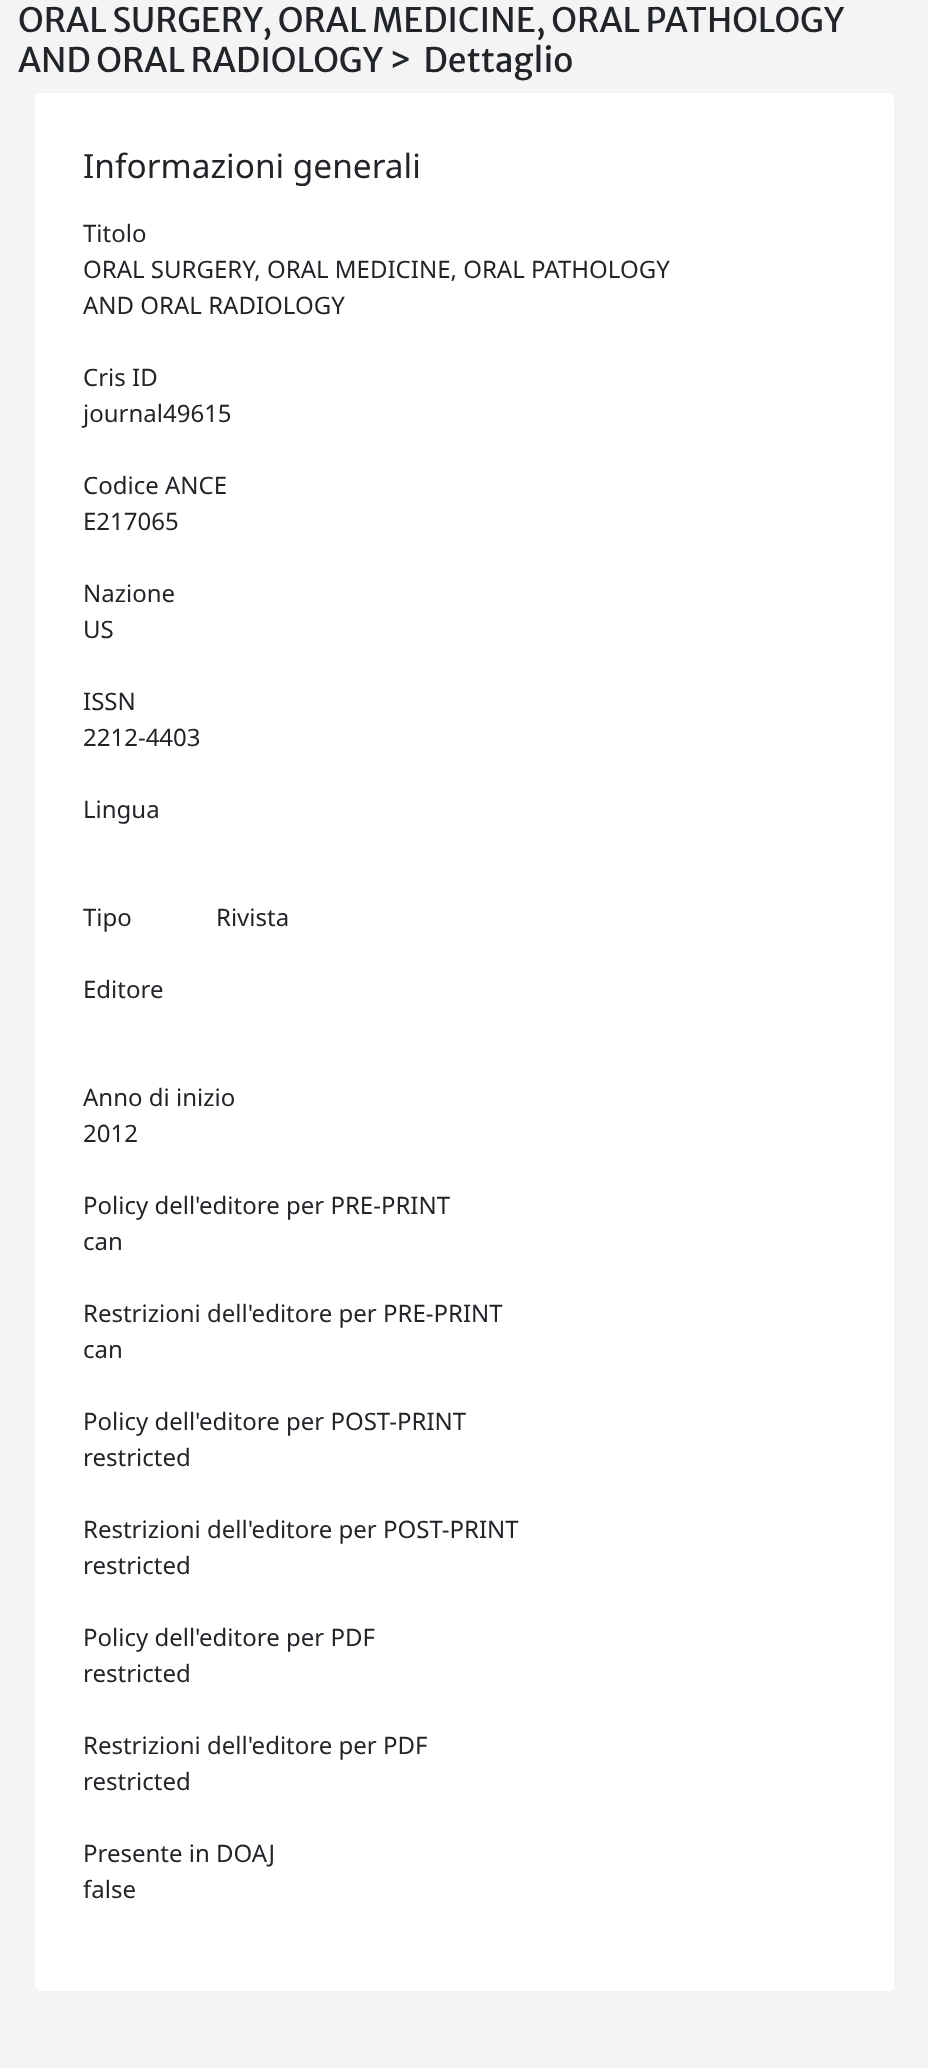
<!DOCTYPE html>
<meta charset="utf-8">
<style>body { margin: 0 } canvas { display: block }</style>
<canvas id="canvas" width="928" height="2068"></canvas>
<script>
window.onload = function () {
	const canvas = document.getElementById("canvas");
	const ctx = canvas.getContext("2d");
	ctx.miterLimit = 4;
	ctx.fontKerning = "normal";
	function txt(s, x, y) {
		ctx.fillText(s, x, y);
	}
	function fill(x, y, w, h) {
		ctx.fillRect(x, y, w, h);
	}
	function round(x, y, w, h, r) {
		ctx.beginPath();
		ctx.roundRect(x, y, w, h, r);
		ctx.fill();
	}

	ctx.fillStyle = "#F4F4F4";
	fill(0, 0, 928, 2068);
	ctx.fillStyle = "#FFFFFF";
	round(35, 93, 859, 1898, 5);
	ctx.font = "33.6px Merriweather Sans";
	ctx.fillStyle = "#212529";
	txt("ORAL SURGERY, ORAL MEDICINE, ORAL PATHOLOGY", 18, 32);
	txt("AND ORAL RADIOLOGY >  Dettaglio", 18, 72);
	ctx.font = "33.4px Noto Sans";
	txt("Informazioni generali", 83, 178);
	ctx.font = "24px Noto Sans";
	txt("Titolo", 83, 242);
	txt("ORAL SURGERY, ORAL MEDICINE, ORAL PATHOLOGY", 83, 278);
	txt("AND ORAL RADIOLOGY", 83, 314);
	txt("Cris ID", 83, 386);
	txt("journal49615", 83, 422);
	txt("Codice ANCE", 83, 494);
	txt("E217065", 83, 530);
	txt("Nazione", 83, 602);
	txt("US", 83, 638);
	txt("ISSN", 83, 710);
	txt("2212-4403", 83, 746);
	txt("Lingua", 83, 818);
	txt("Tipo", 83, 926);
	txt("Rivista", 216, 926);
	txt("Editore", 83, 998);
	txt("Anno di inizio", 83, 1106);
	txt("2012", 83, 1142);
	txt("Policy dell'editore per PRE-PRINT", 83, 1214);
	txt("can", 83, 1250);
	txt("Restrizioni dell'editore per PRE-PRINT", 83, 1322);
	txt("can", 83, 1358);
	txt("Policy dell'editore per POST-PRINT", 83, 1430);
	txt("restricted", 83, 1466);
	txt("Restrizioni dell'editore per POST-PRINT", 83, 1538);
	txt("restricted", 83, 1574);
	txt("Policy dell'editore per PDF", 83, 1646);
	txt("restricted", 83, 1682);
	txt("Restrizioni dell'editore per PDF", 83, 1754);
	txt("restricted", 83, 1790);
	txt("Presente in DOAJ", 83, 1862);
	txt("false", 83, 1898);
};
</script>
